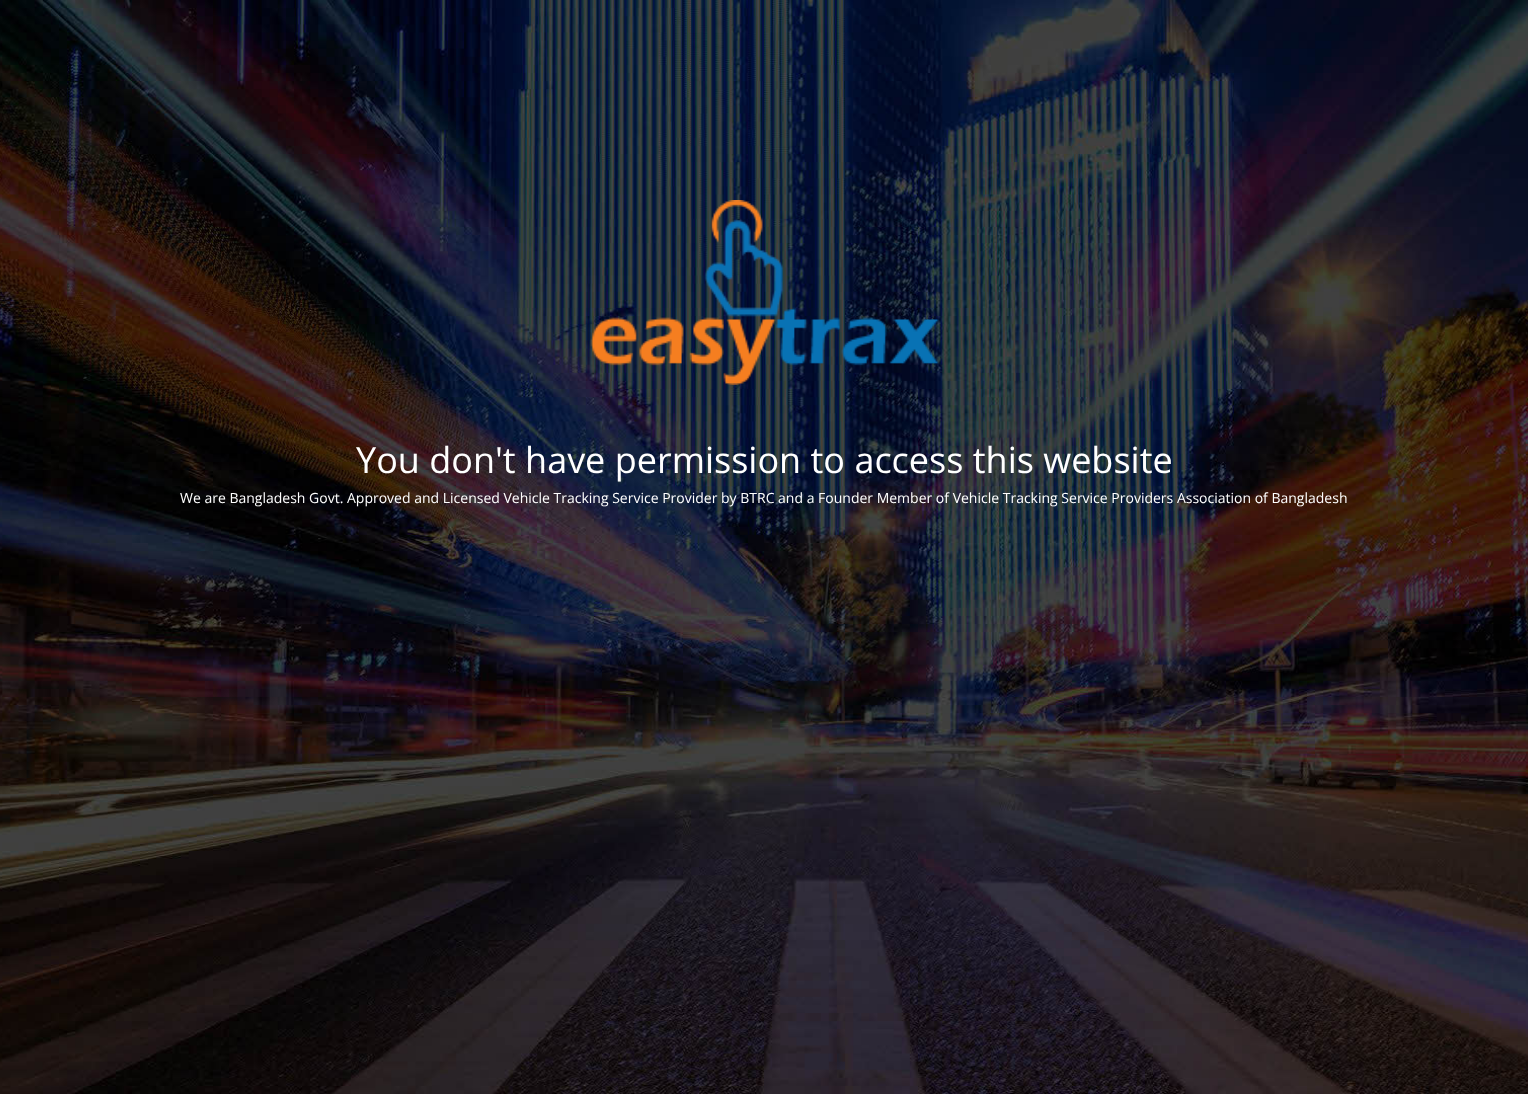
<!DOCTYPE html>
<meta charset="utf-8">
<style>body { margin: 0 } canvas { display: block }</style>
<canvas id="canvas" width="1528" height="1094"></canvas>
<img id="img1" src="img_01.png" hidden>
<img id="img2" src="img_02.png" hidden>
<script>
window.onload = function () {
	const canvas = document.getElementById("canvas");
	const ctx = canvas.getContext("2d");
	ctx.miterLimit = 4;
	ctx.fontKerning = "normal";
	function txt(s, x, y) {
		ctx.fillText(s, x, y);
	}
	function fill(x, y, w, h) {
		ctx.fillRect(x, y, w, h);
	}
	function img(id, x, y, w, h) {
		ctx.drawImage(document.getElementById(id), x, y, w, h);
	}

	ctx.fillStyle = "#FFFFFF";
	fill(0, 0, 1528, 1094);
	img("img1", 0, 0, 1528, 1094);
	img("img2", 590, 200, 349, 185);
	ctx.font = "36px Open Sans";
	txt("You don't have permission to access this website", 356, 473);
	ctx.font = "14px Open Sans";
	txt("We are Bangladesh Govt. Approved and Licensed Vehicle Tracking Service Provider by BTRC and a Founder Member of Vehicle Tracking Service Providers Association of Bangladesh", 180, 503);
};
</script>
